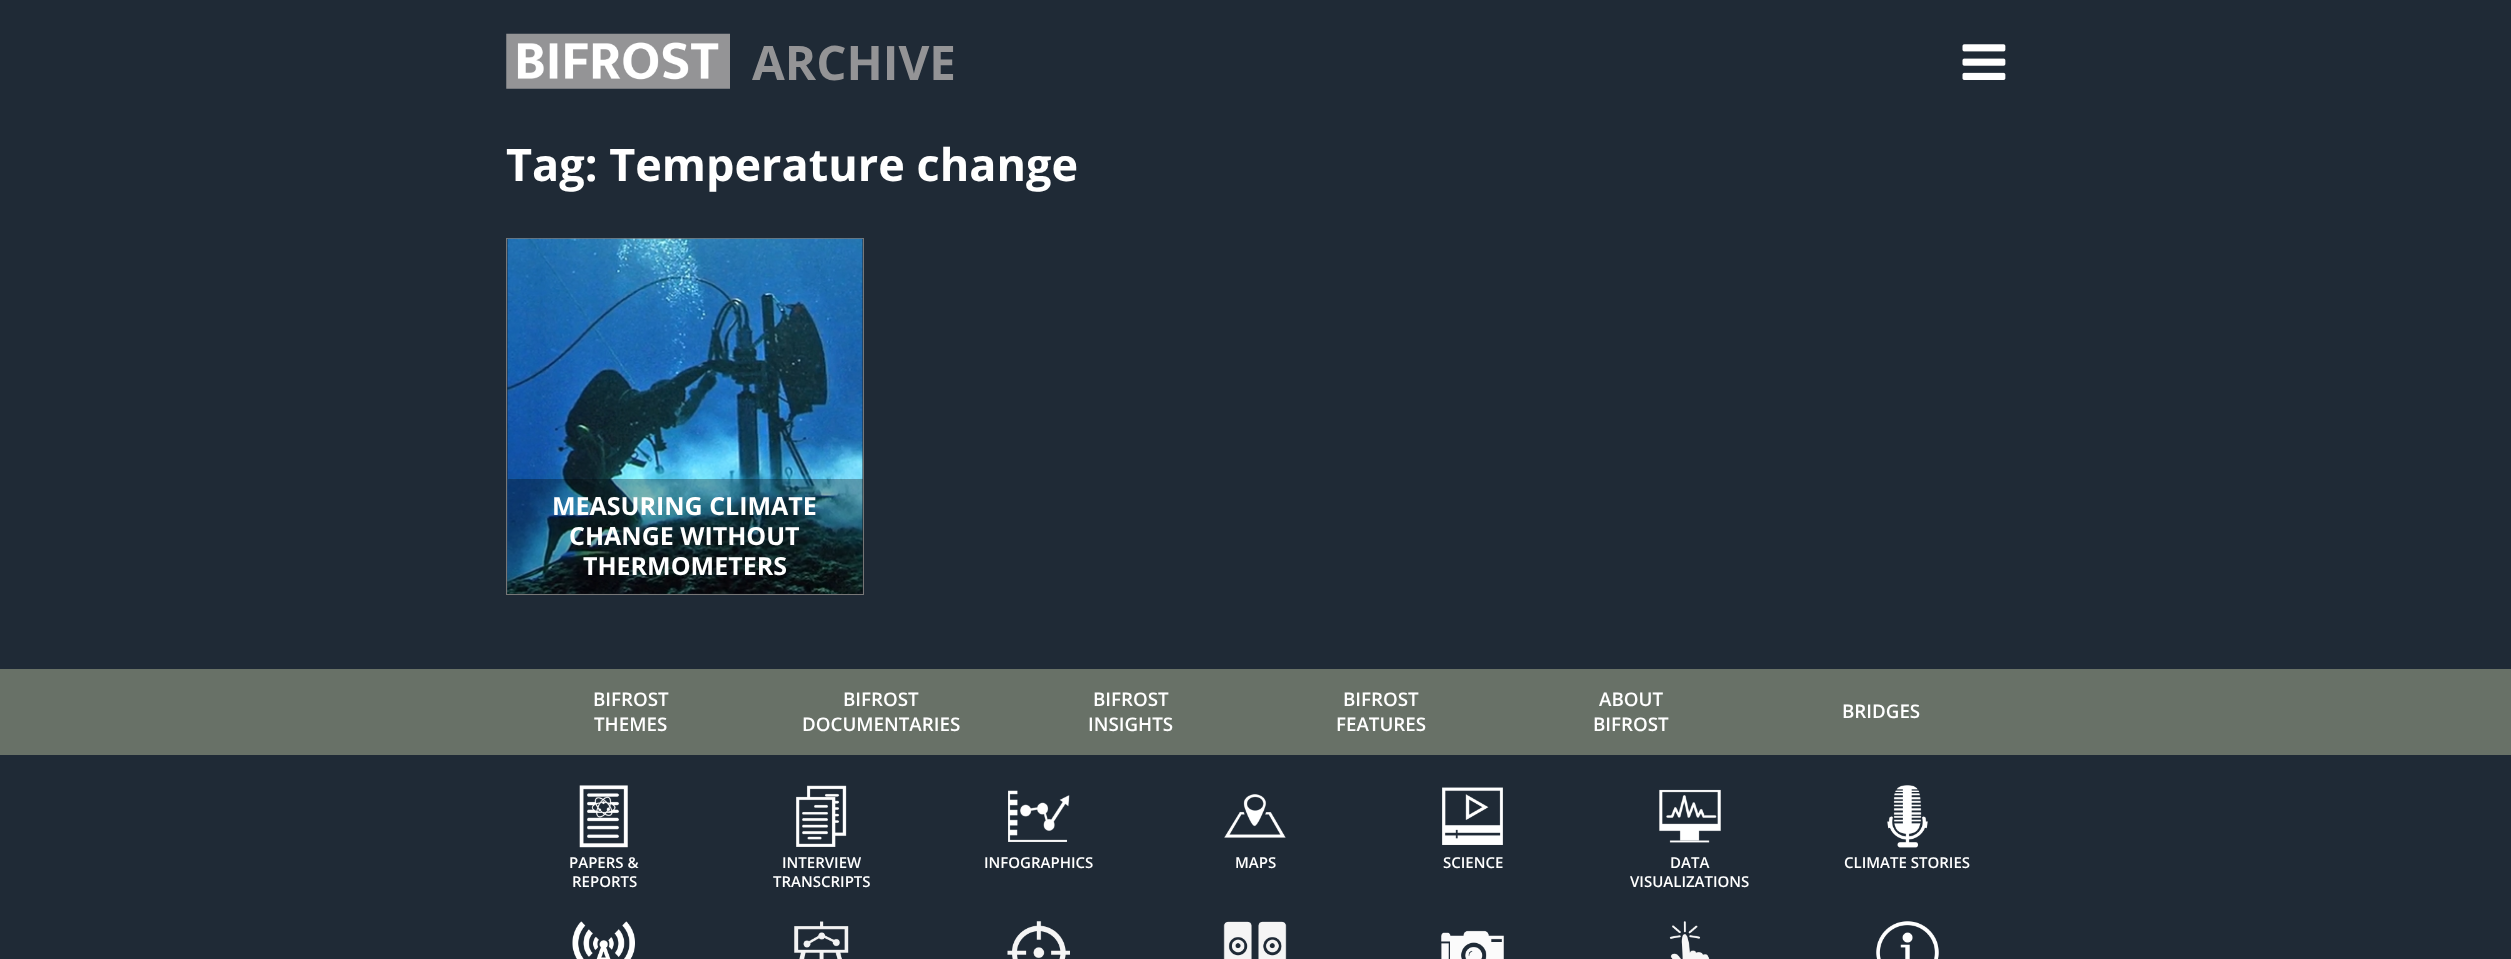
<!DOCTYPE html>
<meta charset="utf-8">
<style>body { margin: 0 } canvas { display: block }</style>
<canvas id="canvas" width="2511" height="959"></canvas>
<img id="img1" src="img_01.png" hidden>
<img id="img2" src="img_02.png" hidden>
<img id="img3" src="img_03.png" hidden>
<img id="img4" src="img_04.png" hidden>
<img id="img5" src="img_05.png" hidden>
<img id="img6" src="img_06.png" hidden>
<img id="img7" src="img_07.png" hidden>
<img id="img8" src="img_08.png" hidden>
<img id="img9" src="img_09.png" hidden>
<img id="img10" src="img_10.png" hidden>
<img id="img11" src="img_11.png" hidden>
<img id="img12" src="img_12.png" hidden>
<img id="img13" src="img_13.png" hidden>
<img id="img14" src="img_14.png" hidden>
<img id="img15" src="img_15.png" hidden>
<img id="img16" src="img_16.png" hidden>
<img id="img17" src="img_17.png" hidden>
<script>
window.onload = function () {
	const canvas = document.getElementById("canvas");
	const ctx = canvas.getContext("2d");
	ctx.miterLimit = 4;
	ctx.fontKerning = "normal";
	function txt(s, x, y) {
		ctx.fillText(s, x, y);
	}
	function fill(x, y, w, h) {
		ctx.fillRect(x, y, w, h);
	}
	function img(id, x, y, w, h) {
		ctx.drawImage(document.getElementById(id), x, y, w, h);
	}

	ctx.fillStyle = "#1F2A36";
	fill(0, 0, 2511, 959);
	img("img1", 506, 33, 224, 56);
	img("img2", 1962, 44, 44, 36);
	ctx.strokeStyle = "#777777";
	ctx.strokeRect(506.5, 238.5, 357, 356);
	img("img3", 507, 238, 356, 356);
	ctx.fillStyle = "rgba(0, 0, 0, 0.3)";
	fill(508, 479, 355, 115);
	ctx.fillStyle = "#687167";
	fill(0, 669, 2511, 86);
	img("img4", 579, 785, 49, 63);
	img("img5", 796, 785, 51, 62);
	img("img6", 1008, 790, 62, 52);
	img("img7", 1224, 794, 62, 44);
	img("img8", 1442, 787, 61, 58);
	img("img9", 1659, 789, 62, 54);
	img("img10", 1887, 785, 41, 63);
	img("img11", 572, 921, 63, 38);
	img("img12", 794, 921, 55, 38);
	img("img13", 1007, 921, 63, 38);
	img("img14", 1223, 921, 64, 38);
	img("img15", 1441, 930, 63, 29);
	img("img16", 1669, 921, 41, 38);
	img("img17", 1876, 921, 63, 38);
	ctx.font = "bold 47.5px Open Sans";
	ctx.fillStyle = "#949496";
	txt("ARCHIVE", 752, 80);
	ctx.font = "bold 45px Open Sans";
	ctx.fillStyle = "#FFFFFF";
	txt("Tag: Temperature change", 506, 181);
	ctx.font = "bold 25px Open Sans";
	txt("MEASURING CLIMATE", 552, 515);
	txt("CHANGE WITHOUT", 569, 545);
	txt("THERMOMETERS", 583, 575);
	ctx.font = "600 18.75px Open Sans";
	txt("BIFROST", 593, 706);
	txt("THEMES", 594, 731);
	txt("BIFROST", 843, 706);
	txt("DOCUMENTARIES", 802, 731);
	txt("BIFROST", 1093, 706);
	txt("INSIGHTS", 1088, 731);
	txt("BIFROST", 1343, 706);
	txt("FEATURES", 1336, 731);
	txt("ABOUT", 1599, 706);
	txt("BIFROST", 1593, 731);
	txt("BRIDGES", 1842, 718);
	ctx.font = "600 15px Open Sans";
	txt("PAPERS &", 569, 868);
	txt("REPORTS", 572, 887);
	txt("INTERVIEW", 782, 868);
	txt("TRANSCRIPTS", 773, 887);
	txt("INFOGRAPHICS", 984, 868);
	txt("MAPS", 1235, 868);
	txt("SCIENCE", 1443, 868);
	txt("DATA", 1670, 868);
	txt("VISUALIZATIONS", 1630, 887);
	txt("CLIMATE STORIES", 1844, 868);
};
</script>
